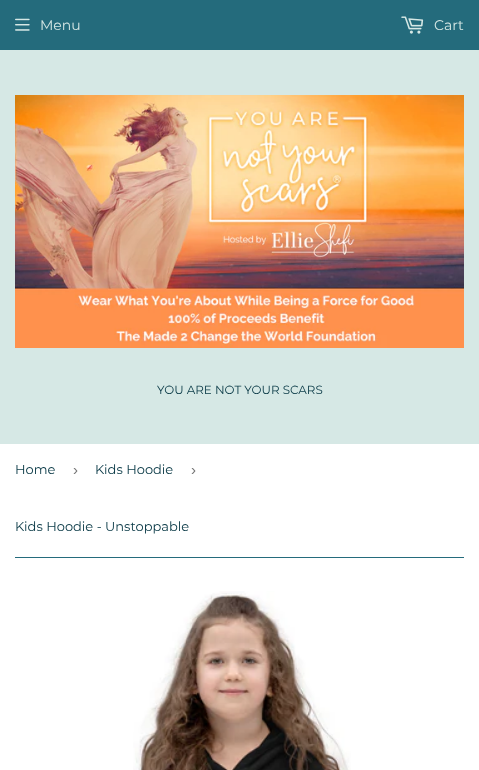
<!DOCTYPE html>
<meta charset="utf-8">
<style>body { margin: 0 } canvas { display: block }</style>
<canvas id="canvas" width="479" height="770"></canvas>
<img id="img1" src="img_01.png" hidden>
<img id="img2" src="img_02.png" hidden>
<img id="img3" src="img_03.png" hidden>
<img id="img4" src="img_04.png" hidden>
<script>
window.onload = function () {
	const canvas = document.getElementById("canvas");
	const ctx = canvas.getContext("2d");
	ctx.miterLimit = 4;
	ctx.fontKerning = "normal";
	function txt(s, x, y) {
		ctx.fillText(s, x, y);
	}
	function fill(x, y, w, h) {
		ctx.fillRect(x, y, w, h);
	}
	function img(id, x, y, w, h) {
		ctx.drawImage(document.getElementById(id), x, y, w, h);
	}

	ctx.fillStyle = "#FFFFFF";
	fill(0, 0, 479, 770);
	ctx.fillStyle = "#246B7C";
	fill(0, 0, 479, 50);
	img("img1", 15, 18, 15, 13);
	img("img2", 401, 16, 23, 18);
	ctx.fillStyle = "#D6E8E5";
	fill(0, 50, 479, 394);
	img("img3", 15, 95, 449, 253);
	ctx.fillStyle = "#246B7C";
	fill(15, 557, 449, 1);
	img("img4", 133, 591, 218, 179);
	ctx.font = "14px Montserrat";
	ctx.fillStyle = "#D6E8E5";
	txt("Menu", 40, 30);
	txt("Cart", 434, 30);
	ctx.font = "11.9px Montserrat";
	ctx.fillStyle = "#083845";
	txt("YOU ARE NOT YOUR SCARS", 157, 394);
	ctx.font = "13px Montserrat";
	txt("Home", 15, 474);
	ctx.font = "15px Liberation Sans";
	ctx.fillStyle = "#767676";
	txt("›", 73, 475);
	ctx.font = "13px Montserrat";
	ctx.fillStyle = "#083845";
	txt("Kids Hoodie", 95, 474);
	ctx.font = "15px Liberation Sans";
	ctx.fillStyle = "#767676";
	txt("›", 191, 475);
	ctx.font = "13px Montserrat";
	ctx.fillStyle = "#083845";
	txt("Kids Hoodie - Unstoppable", 15, 531);
};
</script>
